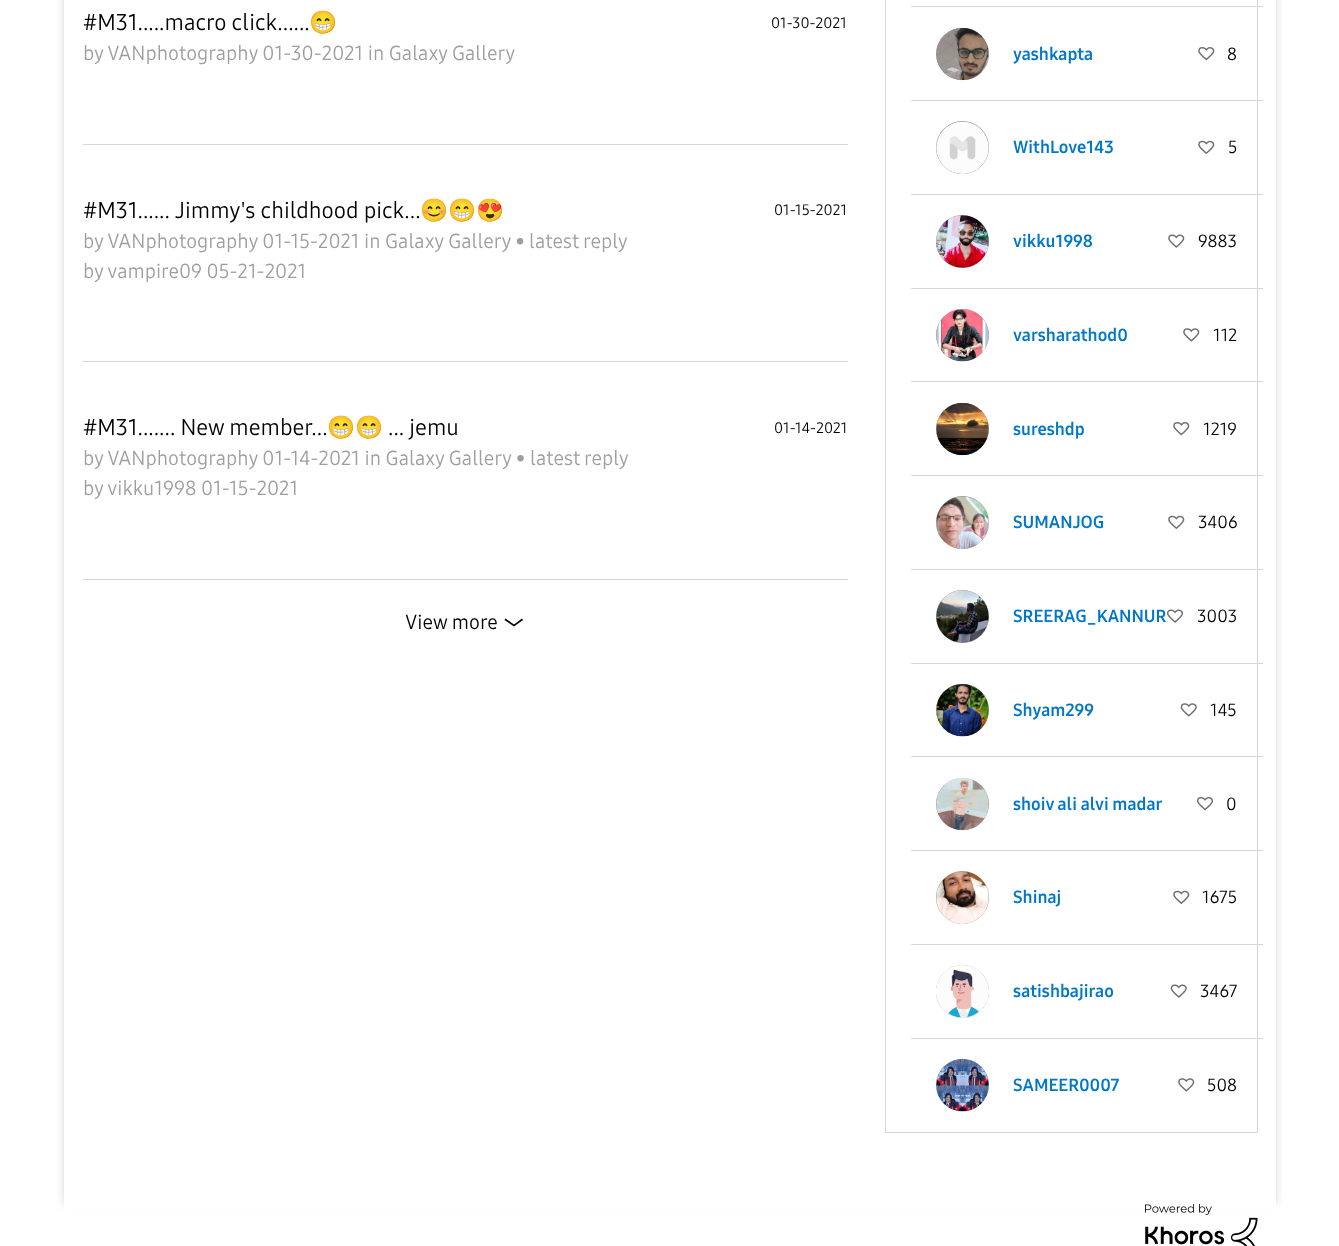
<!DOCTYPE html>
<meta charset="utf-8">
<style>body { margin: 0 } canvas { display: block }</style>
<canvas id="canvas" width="1339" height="1246"></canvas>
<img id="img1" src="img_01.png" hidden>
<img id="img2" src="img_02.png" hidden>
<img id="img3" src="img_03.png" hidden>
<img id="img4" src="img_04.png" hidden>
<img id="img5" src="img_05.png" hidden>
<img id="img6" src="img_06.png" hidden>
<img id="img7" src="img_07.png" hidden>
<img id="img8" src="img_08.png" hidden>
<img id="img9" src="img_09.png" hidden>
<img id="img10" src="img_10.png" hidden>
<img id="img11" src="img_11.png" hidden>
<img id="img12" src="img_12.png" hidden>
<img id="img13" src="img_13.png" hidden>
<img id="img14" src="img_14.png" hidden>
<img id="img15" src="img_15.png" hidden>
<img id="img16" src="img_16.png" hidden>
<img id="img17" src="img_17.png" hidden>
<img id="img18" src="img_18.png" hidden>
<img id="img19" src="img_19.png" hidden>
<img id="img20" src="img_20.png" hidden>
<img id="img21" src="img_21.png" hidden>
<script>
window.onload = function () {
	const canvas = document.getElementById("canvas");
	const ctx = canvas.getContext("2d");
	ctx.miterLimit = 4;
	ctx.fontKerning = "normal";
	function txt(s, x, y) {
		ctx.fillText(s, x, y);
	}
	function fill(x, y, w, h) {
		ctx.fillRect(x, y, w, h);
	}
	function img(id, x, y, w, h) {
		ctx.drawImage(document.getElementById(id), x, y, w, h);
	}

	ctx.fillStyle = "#FFFFFF";
	fill(0, 0, 1339, 1246);
	ctx.save();
	ctx.beginPath();
	ctx.moveTo(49, 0);
	ctx.lineTo(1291, 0);
	ctx.lineTo(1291, 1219);
	ctx.lineTo(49, 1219);
	ctx.closePath();
	ctx.moveTo(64, -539);
	ctx.lineTo(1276, -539);
	ctx.lineTo(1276, 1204);
	ctx.lineTo(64, 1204);
	ctx.closePath();
	ctx.clip("evenodd");
	ctx.fillStyle = "rgba(0, 0, 0, 0.16)";
	ctx.filter = "blur(4.5px)";
	ctx.beginPath();
	ctx.rect(64, -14, 1212, 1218);
	ctx.fill();
	ctx.filter = "none";
	ctx.restore();
	ctx.fillStyle = "#D6D6D6";
	fill(83, 144, 765, 1);
	fill(83, 361, 765, 1);
	fill(83, 579, 765, 1);
	ctx.fillStyle = "#000000";
	ctx.beginPath();
	ctx.moveTo(522, 618.5);
	ctx.lineTo(523, 620);
	ctx.lineTo(514, 626.5);
	ctx.lineTo(504.5, 620);
	ctx.lineTo(505.5, 618.5);
	ctx.lineTo(514, 624.5);
	ctx.closePath();
	ctx.fill();
	ctx.strokeStyle = "#D6D6D6";
	ctx.strokeRect(885.5, -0.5, 372, 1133);
	ctx.fillStyle = "#D6D6D6";
	fill(911, 6, 352, 1);
	ctx.fillStyle = "#999999";
	ctx.filter = "blur(0.5px)";
	ctx.beginPath();
	ctx.roundRect(936, 28, 53, 52, 26);
	ctx.fill();
	ctx.filter = "none";
	img("img1", 936, 27, 53, 54);
	img("img2", 1198, 47, 17, 14);
	ctx.fillStyle = "#D6D6D6";
	fill(911, 100, 352, 1);
	ctx.fillStyle = "#999999";
	ctx.filter = "blur(0.5px)";
	ctx.beginPath();
	ctx.roundRect(936, 121, 53, 53, 26.5);
	ctx.fill();
	ctx.filter = "none";
	img("img3", 936, 121, 53, 53);
	img("img4", 1198, 140, 17, 15);
	ctx.fillStyle = "#D6D6D6";
	fill(911, 194, 352, 1);
	ctx.fillStyle = "#999999";
	ctx.filter = "blur(0.5px)";
	ctx.beginPath();
	ctx.roundRect(936, 215, 53, 53, 26.5);
	ctx.fill();
	ctx.filter = "none";
	img("img5", 936, 215, 53, 53);
	img("img6", 1168, 234, 17, 14);
	ctx.fillStyle = "#D6D6D6";
	fill(911, 288, 352, 1);
	ctx.fillStyle = "#999999";
	ctx.filter = "blur(0.5px)";
	ctx.beginPath();
	ctx.roundRect(936, 309, 53, 52, 26);
	ctx.fill();
	ctx.filter = "none";
	img("img7", 936, 309, 53, 53);
	img("img8", 1183, 328, 17, 14);
	ctx.fillStyle = "#D6D6D6";
	fill(911, 381, 352, 1);
	ctx.fillStyle = "#999999";
	ctx.filter = "blur(0.5px)";
	ctx.beginPath();
	ctx.roundRect(936, 403, 53, 52, 26);
	ctx.fill();
	ctx.filter = "none";
	img("img9", 936, 402, 53, 54);
	img("img2", 1173, 422, 17, 14);
	ctx.fillStyle = "#D6D6D6";
	fill(911, 475, 352, 1);
	ctx.fillStyle = "#999999";
	ctx.filter = "blur(0.5px)";
	ctx.beginPath();
	ctx.roundRect(936, 496, 53, 53, 26.5);
	ctx.fill();
	ctx.filter = "none";
	img("img10", 936, 496, 53, 53);
	img("img4", 1168, 515, 17, 15);
	ctx.fillStyle = "#D6D6D6";
	fill(911, 569, 352, 1);
	ctx.fillStyle = "#999999";
	ctx.filter = "blur(0.5px)";
	ctx.beginPath();
	ctx.roundRect(936, 590, 53, 53, 26.5);
	ctx.fill();
	ctx.filter = "none";
	img("img11", 936, 590, 53, 53);
	img("img12", 1167, 609, 16, 14);
	ctx.fillStyle = "#D6D6D6";
	fill(911, 663, 352, 1);
	ctx.fillStyle = "#999999";
	ctx.filter = "blur(0.5px)";
	ctx.beginPath();
	ctx.roundRect(936, 684, 53, 52, 26);
	ctx.fill();
	ctx.filter = "none";
	img("img13", 936, 684, 53, 53);
	img("img14", 1180, 703, 17, 14);
	ctx.fillStyle = "#D6D6D6";
	fill(911, 756, 352, 1);
	ctx.fillStyle = "#999999";
	ctx.filter = "blur(0.5px)";
	ctx.beginPath();
	ctx.roundRect(936, 778, 53, 52, 26);
	ctx.fill();
	ctx.filter = "none";
	img("img15", 936, 778, 53, 53);
	img("img16", 1197, 797, 16, 14);
	ctx.fillStyle = "#D6D6D6";
	fill(911, 850, 352, 1);
	ctx.fillStyle = "#999999";
	ctx.filter = "blur(0.5px)";
	ctx.beginPath();
	ctx.roundRect(936, 871, 53, 53, 26.5);
	ctx.fill();
	ctx.filter = "none";
	img("img17", 936, 871, 53, 53);
	img("img4", 1173, 890, 17, 15);
	ctx.fillStyle = "#D6D6D6";
	fill(911, 944, 352, 1);
	ctx.save();
	ctx.beginPath();
	ctx.moveTo(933, 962);
	ctx.lineTo(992, 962);
	ctx.lineTo(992, 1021);
	ctx.lineTo(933, 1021);
	ctx.closePath();
	ctx.moveTo(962.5, 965);
	ctx.bezierCurveTo(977, 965, 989, 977, 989, 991.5);
	ctx.bezierCurveTo(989, 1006, 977, 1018, 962.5, 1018);
	ctx.bezierCurveTo(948, 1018, 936, 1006, 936, 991.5);
	ctx.bezierCurveTo(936, 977, 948, 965, 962.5, 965);
	ctx.closePath();
	ctx.clip("evenodd");
	ctx.fillStyle = "#999999";
	ctx.filter = "blur(0.5px)";
	ctx.beginPath();
	ctx.roundRect(936, 965, 53, 53, 26.5);
	ctx.fill();
	ctx.filter = "none";
	ctx.restore();
	img("img18", 936, 969, 53, 49);
	img("img19", 1170, 984, 17, 14);
	fill(911, 1038, 352, 1);
	ctx.fillStyle = "#999999";
	ctx.filter = "blur(0.5px)";
	ctx.beginPath();
	ctx.roundRect(936, 1059, 53, 52, 26);
	ctx.fill();
	ctx.filter = "none";
	img("img20", 936, 1059, 53, 53);
	img("img8", 1178, 1078, 17, 14);
	ctx.fillStyle = "#FFFFFF";
	fill(64, 1204, 1212, 7);
	img("img21", 1145, 1204, 113, 42);
	ctx.font = "22.5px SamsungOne";
	ctx.fillStyle = "#000000";
	txt("#M31.....macro click......", 83, 30);
	ctx.font = "22.5px Noto Color Emoji";
	txt("😁", 309, 30);
	ctx.font = "20px SamsungOne";
	ctx.fillStyle = "#9E9E9E";
	txt("by VANphotography 01-30-2021 in Galaxy Gallery", 83, 60);
	ctx.font = "15px SamsungOne";
	ctx.fillStyle = "#000000";
	txt("01-30-2021", 771, 28);
	ctx.font = "22.5px SamsungOne";
	txt("#M31...... Jimmy's childhood pick...", 83, 218);
	ctx.font = "22.5px Noto Color Emoji";
	txt("😊😁😍", 420, 218);
	ctx.font = "20px SamsungOne";
	ctx.fillStyle = "#9E9E9E";
	txt("by VANphotography 01-15-2021 in Galaxy Gallery •", 83, 248);
	ctx.wordSpacing = "-1px";
	txt("latest reply", 529, 248);
	ctx.wordSpacing = "0px";
	txt("by vampire09 05-21-2021", 83, 278);
	ctx.font = "15px SamsungOne";
	ctx.fillStyle = "#000000";
	txt("01-15-2021", 774, 215);
	ctx.font = "22.5px SamsungOne";
	txt("#M31....... New member...", 83, 435);
	ctx.font = "22.5px Noto Color Emoji";
	txt("😁😁", 327, 435);
	ctx.font = "22.5px SamsungOne";
	txt("... jemu", 388, 435);
	ctx.font = "20px SamsungOne";
	ctx.fillStyle = "#9E9E9E";
	txt("by VANphotography 01-14-2021 in Galaxy Gallery •", 83, 465);
	ctx.wordSpacing = "-1px";
	txt("latest reply", 530, 465);
	ctx.wordSpacing = "0px";
	txt("by vikku1998 01-15-2021", 83, 495);
	ctx.font = "15px SamsungOne";
	ctx.fillStyle = "#000000";
	txt("01-14-2021", 774, 433);
	ctx.font = "20px SamsungOne";
	txt("View more", 405, 629);
	ctx.font = "bold 17.5px SamsungOne";
	ctx.fillStyle = "#0077C8";
	txt("yashkapta", 1013, 60);
	ctx.font = "17.5px SamsungOne";
	ctx.fillStyle = "#000000";
	txt("8", 1227, 60);
	ctx.font = "bold 17.5px SamsungOne";
	ctx.fillStyle = "#0077C8";
	txt("WithLove143", 1013, 153);
	ctx.font = "17.5px SamsungOne";
	ctx.fillStyle = "#000000";
	txt("5", 1228, 153);
	ctx.font = "bold 17.5px SamsungOne";
	ctx.fillStyle = "#0077C8";
	txt("vikku1998", 1013, 247);
	ctx.font = "17.5px SamsungOne";
	ctx.fillStyle = "#000000";
	txt("9883", 1198, 247);
	ctx.font = "bold 17.5px SamsungOne";
	ctx.fillStyle = "#0077C8";
	txt("varsharathod0", 1013, 341);
	ctx.font = "17.5px SamsungOne";
	ctx.fillStyle = "#000000";
	txt("112", 1213, 341);
	ctx.font = "bold 17.5px SamsungOne";
	ctx.fillStyle = "#0077C8";
	txt("sureshdp", 1013, 435);
	ctx.font = "17.5px SamsungOne";
	ctx.fillStyle = "#000000";
	txt("1219", 1203, 435);
	ctx.font = "bold 17.5px SamsungOne";
	ctx.fillStyle = "#0077C8";
	txt("SUMANJOG", 1013, 528);
	ctx.font = "17.5px SamsungOne";
	ctx.fillStyle = "#000000";
	txt("3406", 1198, 528);
	ctx.font = "bold 17.5px SamsungOne";
	ctx.fillStyle = "#0077C8";
	txt("SREERAG_KANNUR", 1013, 622);
	ctx.font = "17.5px SamsungOne";
	ctx.fillStyle = "#000000";
	txt("3003", 1197, 622);
	ctx.font = "bold 17.5px SamsungOne";
	ctx.fillStyle = "#0077C8";
	txt("Shyam299", 1013, 716);
	ctx.font = "17.5px SamsungOne";
	ctx.fillStyle = "#000000";
	txt("145", 1210, 716);
	ctx.font = "bold 17.5px SamsungOne";
	ctx.fillStyle = "#0077C8";
	txt("shoiv ali alvi madar", 1013, 810);
	ctx.font = "17.5px SamsungOne";
	ctx.fillStyle = "#000000";
	txt("0", 1226, 810);
	ctx.font = "bold 17.5px SamsungOne";
	ctx.fillStyle = "#0077C8";
	txt("Shinaj", 1013, 903);
	ctx.font = "17.5px SamsungOne";
	ctx.fillStyle = "#000000";
	txt("1675", 1202, 903);
	ctx.font = "bold 17.5px SamsungOne";
	ctx.fillStyle = "#0077C8";
	txt("satishbajirao", 1013, 997);
	ctx.font = "17.5px SamsungOne";
	ctx.fillStyle = "#000000";
	txt("3467", 1200, 997);
	ctx.font = "bold 17.5px SamsungOne";
	ctx.fillStyle = "#0077C8";
	txt("SAMEER0007", 1013, 1091);
	ctx.font = "17.5px SamsungOne";
	ctx.fillStyle = "#000000";
	txt("508", 1207, 1091);
};
</script>
